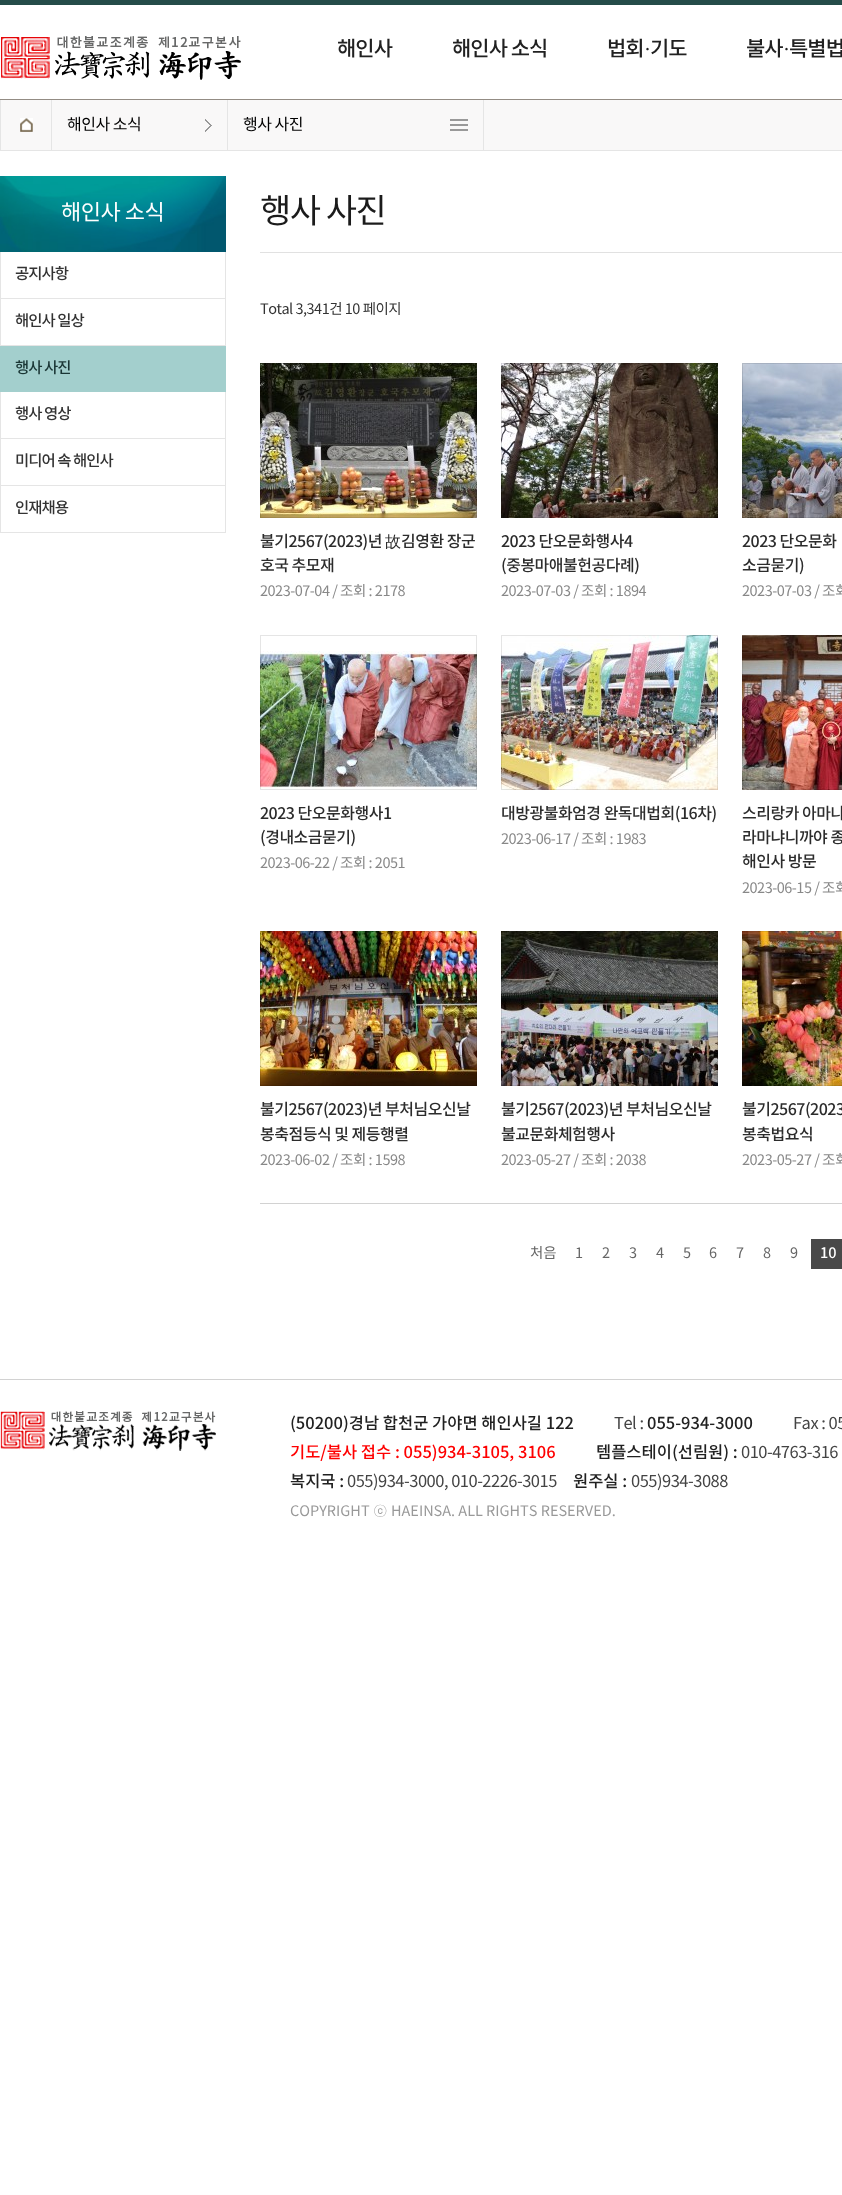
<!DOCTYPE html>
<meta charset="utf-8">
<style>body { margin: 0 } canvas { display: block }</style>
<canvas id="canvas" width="842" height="2195"></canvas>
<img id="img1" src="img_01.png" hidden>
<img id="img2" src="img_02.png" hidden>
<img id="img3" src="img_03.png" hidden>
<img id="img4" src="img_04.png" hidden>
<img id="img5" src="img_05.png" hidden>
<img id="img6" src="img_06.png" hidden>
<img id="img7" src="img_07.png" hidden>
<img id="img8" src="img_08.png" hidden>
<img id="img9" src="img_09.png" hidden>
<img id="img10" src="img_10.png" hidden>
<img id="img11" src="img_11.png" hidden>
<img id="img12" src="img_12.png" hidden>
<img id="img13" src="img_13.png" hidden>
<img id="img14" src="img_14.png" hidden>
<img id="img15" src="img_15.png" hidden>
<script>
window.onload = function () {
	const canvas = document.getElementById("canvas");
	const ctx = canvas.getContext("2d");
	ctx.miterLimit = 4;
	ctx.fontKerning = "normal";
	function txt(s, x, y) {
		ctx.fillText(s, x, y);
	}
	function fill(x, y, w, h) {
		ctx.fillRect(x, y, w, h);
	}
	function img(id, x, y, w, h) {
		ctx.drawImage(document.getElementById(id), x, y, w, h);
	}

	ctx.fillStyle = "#FFFFFF";
	fill(0, 0, 842, 2195);
	ctx.fillStyle = "#254C49";
	fill(0, 0, 842, 5);
	ctx.fillStyle = "#938C84";
	fill(0, 99, 842, 1);
	img("img1", 1, 36, 240, 44);
	ctx.fillStyle = "#F9F8F8";
	fill(1, 100, 841, 50);
	ctx.fillStyle = "#E5E5E5";
	fill(0, 150, 842, 1);
	img("img2", 20, 118, 13, 14);
	fill(0, 100, 1, 50);
	fill(51, 100, 1, 50);
	img("img3", 205, 119, 7, 13);
	fill(483, 100, 1, 50);
	fill(227, 100, 1, 50);
	img("img4", 450, 119, 18, 12);
	img("img5", 0, 176, 226, 76);
	fill(225, 252, 1, 94);
	fill(0, 298, 226, 1);
	fill(0, 252, 1, 47);
	fill(0, 345, 226, 1);
	fill(0, 299, 1, 47);
	ctx.fillStyle = "#A3CFCD";
	fill(0, 346, 226, 46);
	ctx.fillStyle = "#E5E5E5";
	fill(225, 392, 1, 141);
	fill(0, 438, 226, 1);
	fill(0, 392, 1, 47);
	fill(0, 485, 226, 1);
	fill(0, 439, 1, 47);
	fill(0, 532, 226, 1);
	fill(0, 486, 1, 47);
	ctx.fillStyle = "#E1E1E1";
	fill(260, 252, 582, 1);
	ctx.fillStyle = "#D2D2D2";
	fill(260, 1203, 582, 1);
	img("img6", 260, 363, 217, 155);
	ctx.strokeStyle = "rgba(0, 0, 0, 0.1)";
	ctx.strokeRect(260.5, 363.5, 216, 154);
	img("img7", 501, 363, 217, 155);
	ctx.strokeRect(501.5, 363.5, 216, 154);
	img("img8", 742, 363, 100, 155);
	ctx.strokeRect(742.5, 363.5, 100, 154);
	img("img9", 260, 651, 217, 139);
	ctx.strokeRect(260.5, 635.5, 216, 154);
	img("img10", 501, 635, 217, 155);
	ctx.strokeRect(501.5, 635.5, 216, 154);
	img("img11", 742, 635, 100, 155);
	ctx.strokeRect(742.5, 635.5, 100, 154);
	img("img12", 260, 931, 217, 155);
	ctx.strokeRect(260.5, 931.5, 216, 154);
	img("img13", 501, 931, 217, 155);
	ctx.strokeRect(501.5, 931.5, 216, 154);
	img("img14", 742, 931, 100, 155);
	ctx.strokeRect(742.5, 931.5, 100, 154);
	ctx.fillStyle = "#494949";
	fill(811, 1239, 31, 30);
	ctx.fillStyle = "#D2D2D2";
	fill(0, 1379, 842, 1);
	img("img15", 0, 1411, 216, 40);
	ctx.letterSpacing = "-1px";
	ctx.font = "500 21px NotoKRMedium";
	ctx.fillStyle = "#212121";
	txt("해인사", 337, 56);
	txt("해인사 소식", 452, 56);
	txt("법회", 607, 56);
	ctx.font = "21px Liberation Serif";
	txt("·", 644, 56);
	ctx.font = "500 21px NotoKRMedium";
	txt("기도", 650, 56);
	txt("불사", 746, 56);
	ctx.font = "21px Liberation Serif";
	txt("·", 783, 56);
	ctx.font = "500 21px NotoKRMedium";
	txt("특별법", 789, 56);
	ctx.letterSpacing = "-0.5px";
	ctx.font = "16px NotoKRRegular";
	ctx.fillStyle = "#000000";
	txt("해인사 소식", 67, 130);
	txt("행사 사진", 243, 130);
	ctx.font = "22px NotoKRRegular";
	ctx.fillStyle = "#FFFFFF";
	txt("해인사 소식", 61, 220);
	ctx.letterSpacing = "-1px";
	ctx.font = "500 15.5px NotoKRMedium";
	ctx.fillStyle = "#333333";
	txt("공지사항", 15, 279);
	txt("해인사 일상", 15, 326);
	ctx.fillStyle = "#1A3635";
	txt("행사 사진", 15, 373);
	ctx.fillStyle = "#333333";
	txt("행사 영상", 15, 419);
	txt("미디어 속 해인사", 15, 466);
	txt("인재채용", 15, 513);
	ctx.letterSpacing = "-1.5px";
	ctx.font = "34px NotoKRRegular";
	ctx.fillStyle = "#1B1B1B";
	txt("행사 사진", 260, 223);
	ctx.letterSpacing = "-0.5px";
	ctx.font = "14.5px NotoKRRegular";
	ctx.fillStyle = "#333333";
	txt("Total 3,341건 10 페이지", 260, 314);
	ctx.font = "500 16px NotoKRMedium";
	ctx.fillStyle = "#2C2C2C";
	txt("불기2567(2023)년", 260, 547);
	ctx.font = "500 16px WenQuanYi Zen Hei";
	txt("故", 385, 547);
	ctx.font = "500 16px NotoKRMedium";
	txt("김영환 장군", 401, 547);
	txt("호국 추모재", 260, 571);
	ctx.font = "14.5px NotoKRRegular";
	ctx.fillStyle = "#888888";
	txt("2023-07-04 / 조회 : 2178", 260, 596);
	ctx.font = "500 16px NotoKRMedium";
	ctx.fillStyle = "#2C2C2C";
	txt("2023 단오문화행사4", 501, 547);
	txt("(중봉마애불헌공다례)", 501, 571);
	ctx.font = "14.5px NotoKRRegular";
	ctx.fillStyle = "#888888";
	txt("2023-07-03 / 조회 : 1894", 501, 596);
	ctx.font = "500 16px NotoKRMedium";
	ctx.fillStyle = "#2C2C2C";
	txt("2023 단오문화", 742, 547);
	txt("소금묻기)", 742, 571);
	ctx.font = "14.5px NotoKRRegular";
	ctx.fillStyle = "#888888";
	txt("2023-07-03 / 조회", 742, 596);
	ctx.font = "500 16px NotoKRMedium";
	ctx.fillStyle = "#2C2C2C";
	txt("2023 단오문화행사1", 260, 819);
	txt("(경내소금묻기)", 260, 843);
	ctx.font = "14.5px NotoKRRegular";
	ctx.fillStyle = "#888888";
	txt("2023-06-22 / 조회 : 2051", 260, 868);
	ctx.font = "500 16px NotoKRMedium";
	ctx.fillStyle = "#2C2C2C";
	txt("대방광불화엄경 완독대법회(16차)", 501, 819);
	ctx.font = "14.5px NotoKRRegular";
	ctx.fillStyle = "#888888";
	txt("2023-06-17 / 조회 : 1983", 501, 844);
	ctx.font = "500 16px NotoKRMedium";
	ctx.fillStyle = "#2C2C2C";
	txt("스리랑카 아마나", 742, 819);
	txt("라마냐니까야 종", 742, 843);
	txt("해인사 방문", 742, 867);
	ctx.font = "14.5px NotoKRRegular";
	ctx.fillStyle = "#888888";
	txt("2023-06-15 / 조회", 742, 893);
	ctx.font = "500 16px NotoKRMedium";
	ctx.fillStyle = "#2C2C2C";
	txt("불기2567(2023)년 부처님오신날", 260, 1115);
	txt("봉축점등식 및 제등행렬", 260, 1140);
	ctx.font = "14.5px NotoKRRegular";
	ctx.fillStyle = "#888888";
	txt("2023-06-02 / 조회 : 1598", 260, 1165);
	ctx.font = "500 16px NotoKRMedium";
	ctx.fillStyle = "#2C2C2C";
	txt("불기2567(2023)년 부처님오신날", 501, 1115);
	txt("불교문화체험행사", 501, 1140);
	ctx.font = "14.5px NotoKRRegular";
	ctx.fillStyle = "#888888";
	txt("2023-05-27 / 조회 : 2038", 501, 1165);
	ctx.font = "500 16px NotoKRMedium";
	ctx.fillStyle = "#2C2C2C";
	txt("불기2567(2023", 742, 1115);
	txt("봉축법요식", 742, 1140);
	ctx.font = "14.5px NotoKRRegular";
	ctx.fillStyle = "#888888";
	txt("2023-05-27 / 조회", 742, 1165);
	ctx.letterSpacing = "0px";
	ctx.fillStyle = "#666666";
	txt("처음", 530, 1258);
	txt("1", 575, 1258);
	txt("2", 602, 1258);
	txt("3", 629, 1258);
	txt("4", 656, 1258);
	txt("5", 683, 1258);
	txt("6", 709, 1258);
	txt("7", 736, 1258);
	txt("8", 763, 1258);
	txt("9", 790, 1258);
	ctx.font = "500 14.5px NotoKRMedium";
	ctx.fillStyle = "#FFFFFF";
	txt("10", 820, 1258);
	ctx.font = "500 16.5px NotoKRMedium";
	ctx.fillStyle = "#212121";
	txt("(50200)경남 합천군 가야면 해인사길 122", 290, 1429);
	ctx.letterSpacing = "-0.5px";
	ctx.font = "16.5px NotoKRRegular";
	ctx.fillStyle = "#444444";
	txt("Tel :", 614, 1429);
	ctx.letterSpacing = "0px";
	ctx.font = "500 16.5px NotoKRMedium";
	ctx.fillStyle = "#212121";
	txt("055-934-3000", 647, 1429);
	ctx.letterSpacing = "-0.5px";
	ctx.font = "16.5px NotoKRRegular";
	ctx.fillStyle = "#444444";
	txt("Fax : 05", 793, 1429);
	ctx.letterSpacing = "0px";
	ctx.font = "500 16.5px NotoKRMedium";
	ctx.fillStyle = "#FF0000";
	txt("기도/불사 접수 : 055)934-3105, 3106", 290, 1458);
	ctx.fillStyle = "#212121";
	txt("템플스테이(선림원) :", 596, 1458);
	ctx.letterSpacing = "-0.5px";
	ctx.font = "16.5px NotoKRRegular";
	ctx.fillStyle = "#444444";
	txt("010-4763-316", 741, 1458);
	ctx.letterSpacing = "0px";
	ctx.font = "500 16.5px NotoKRMedium";
	ctx.fillStyle = "#212121";
	txt("복지국 :", 290, 1487);
	ctx.letterSpacing = "-0.5px";
	ctx.font = "16.5px NotoKRRegular";
	ctx.fillStyle = "#444444";
	txt("055)934-3000, 010-2226-3015", 347, 1487);
	ctx.letterSpacing = "0px";
	ctx.font = "500 16.5px NotoKRMedium";
	ctx.fillStyle = "#212121";
	txt("원주실 :", 573, 1487);
	ctx.letterSpacing = "-0.5px";
	ctx.font = "16.5px NotoKRRegular";
	ctx.fillStyle = "#444444";
	txt("055)934-3088", 631, 1487);
	ctx.letterSpacing = "0px";
	ctx.font = "14.5px NotoKRRegular";
	ctx.fillStyle = "#999999";
	txt("COPYRIGHT", 290, 1516);
	ctx.font = "14.5px Dotum";
	txt("ⓒ", 373, 1516);
	ctx.font = "14.5px NotoKRRegular";
	txt("HAEINSA. ALL RIGHTS RESERVED.", 391, 1516);
};
</script>
